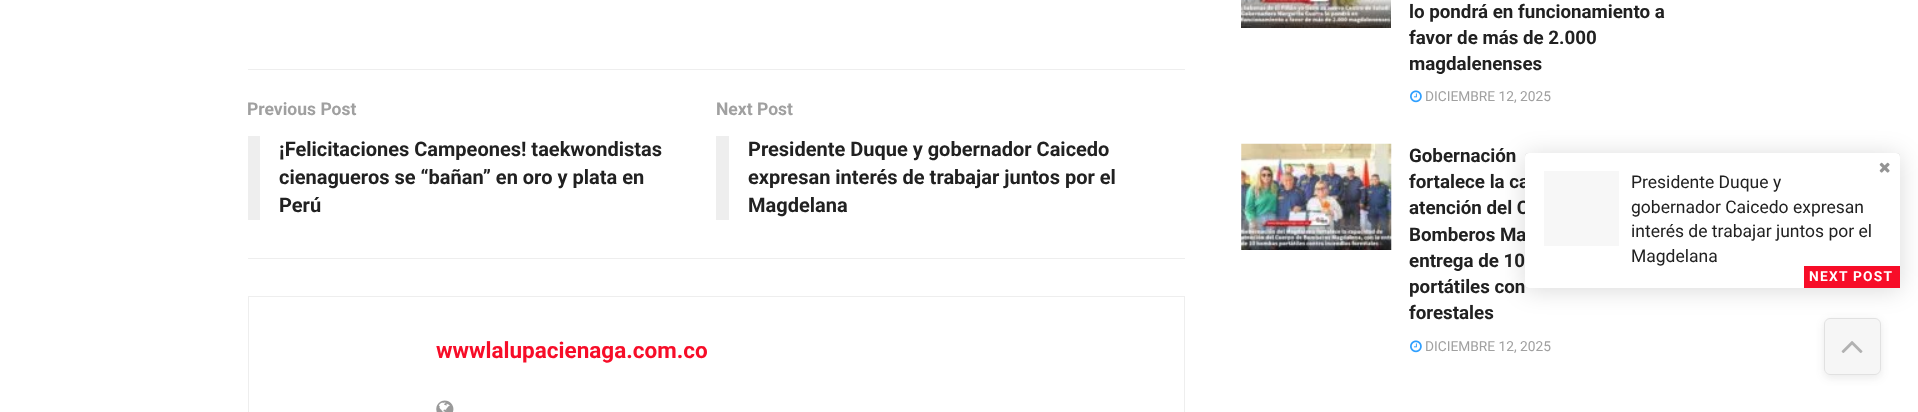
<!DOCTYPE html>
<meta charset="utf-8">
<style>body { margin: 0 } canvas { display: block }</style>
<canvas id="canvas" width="1918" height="412"></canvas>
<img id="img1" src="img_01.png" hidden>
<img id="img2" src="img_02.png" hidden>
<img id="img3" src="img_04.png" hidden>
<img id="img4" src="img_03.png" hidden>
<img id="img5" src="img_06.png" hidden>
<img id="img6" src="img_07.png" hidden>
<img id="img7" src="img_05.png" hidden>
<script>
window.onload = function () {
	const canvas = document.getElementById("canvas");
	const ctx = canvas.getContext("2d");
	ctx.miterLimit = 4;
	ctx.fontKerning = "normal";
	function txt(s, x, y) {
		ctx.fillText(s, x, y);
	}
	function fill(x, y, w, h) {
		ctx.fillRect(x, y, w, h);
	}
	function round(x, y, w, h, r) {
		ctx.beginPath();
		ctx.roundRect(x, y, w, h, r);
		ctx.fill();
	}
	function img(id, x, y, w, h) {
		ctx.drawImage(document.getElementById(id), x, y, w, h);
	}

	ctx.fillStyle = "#FFFFFF";
	fill(0, 0, 1918, 412);
	img("img1", 1241, 0, 150, 28);
	img("img2", 1410, 90, 12, 13);
	img("img3", 1300, 143, 33, 1);
	img("img4", 1241, 143, 151, 107);
	img("img2", 1410, 340, 12, 13);
	ctx.fillStyle = "#EEEEEE";
	fill(248, 69, 937, 1);
	fill(248, 258, 937, 1);
	fill(248, 136, 12, 84);
	fill(716, 136, 13, 84);
	ctx.fillStyle = "rgba(0, 0, 0, 0.15)";
	ctx.filter = "blur(12.5px)";
	ctx.beginPath();
	ctx.roundRect(1525, 155, 375, 135, 4);
	ctx.fill();
	ctx.filter = "none";
	ctx.fillStyle = "rgba(0, 0, 0, 0.2)";
	ctx.filter = "blur(0.5px)";
	ctx.beginPath();
	ctx.roundRect(1525, 153, 375, 135, 4);
	ctx.fill();
	ctx.filter = "none";
	ctx.strokeStyle = "#EEEEEE";
	ctx.strokeRect(248.5, 296.5, 936, 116);
	img("img5", 436, 400, 18, 12);
	ctx.save();
	ctx.beginPath();
	ctx.moveTo(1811, 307);
	ctx.lineTo(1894, 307);
	ctx.lineTo(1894, 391);
	ctx.lineTo(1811, 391);
	ctx.closePath();
	ctx.moveTo(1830, 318);
	ctx.lineTo(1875, 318);
	ctx.bezierCurveTo(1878.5, 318, 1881, 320.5, 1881, 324);
	ctx.lineTo(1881, 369);
	ctx.bezierCurveTo(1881, 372.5, 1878.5, 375, 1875, 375);
	ctx.lineTo(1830, 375);
	ctx.bezierCurveTo(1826.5, 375, 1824, 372.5, 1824, 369);
	ctx.lineTo(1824, 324);
	ctx.bezierCurveTo(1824, 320.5, 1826.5, 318, 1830, 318);
	ctx.closePath();
	ctx.clip("evenodd");
	ctx.fillStyle = "rgba(51, 51, 51, 0.1)";
	ctx.filter = "blur(4px)";
	ctx.beginPath();
	ctx.roundRect(1824, 320, 57, 58, 6);
	ctx.fill();
	ctx.filter = "none";
	ctx.restore();
	ctx.fillStyle = "rgba(195, 195, 195, 0.15)";
	ctx.beginPath();
	ctx.roundRect(1824.5, 318.5, 56, 56, 5.5);
	ctx.fill();
	ctx.strokeStyle = "#E1E1E1";
	ctx.stroke();
	img("img6", 1841, 341, 22, 12);
	ctx.font = "bold 18.75px Roboto";
	ctx.fillStyle = "#212121";
	txt("lo pondrá en funcionamiento a", 1409, 18);
	txt("favor de más de 2.000", 1409, 44);
	txt("magdalenenses", 1409, 70);
	ctx.font = "13.75px Roboto";
	ctx.fillStyle = "#A0A0A0";
	txt("DICIEMBRE 12, 2025", 1425, 101);
	ctx.font = "bold 18.75px Roboto";
	ctx.fillStyle = "#212121";
	txt("Gobernación", 1409, 162);
	txt("fortalece la ca", 1409, 188);
	txt("atención del C", 1409, 214);
	txt("Bomberos Ma", 1409, 241);
	txt("entrega de 10", 1409, 267);
	txt("portátiles con", 1409, 293);
	txt("forestales", 1409, 319);
	ctx.font = "13.75px Roboto";
	ctx.fillStyle = "#A0A0A0";
	txt("DICIEMBRE 12, 2025", 1425, 351);
	ctx.font = "bold 17.5px Roboto";
	txt("Previous Post", 247, 115);
	ctx.font = "bold 20px Roboto";
	ctx.fillStyle = "#212121";
	txt("¡Felicitaciones Campeones! taekwondistas", 279, 156);
	txt("cienagueros se “bañan” en oro y plata en", 279, 184);
	txt("Perú", 279, 212);
	ctx.font = "bold 17.5px Roboto";
	ctx.fillStyle = "#A0A0A0";
	txt("Next Post", 716, 115);
	ctx.font = "bold 20px Roboto";
	ctx.fillStyle = "#212121";
	txt("Presidente Duque y gobernador Caicedo", 748, 156);
	txt("expresan interés de trabajar juntos por el", 748, 184);
	txt("Magdelana", 748, 212);
	ctx.fillStyle = "#FFFFFF";
	round(1525, 153, 375, 135, 4);
	img("img7", 1879, 162, 11, 11);
	ctx.fillStyle = "#F7F7F7";
	fill(1544, 171, 75, 75);
	ctx.font = "17.5px Roboto";
	ctx.fillStyle = "#212121";
	txt("Presidente Duque y", 1631, 188);
	txt("gobernador Caicedo expresan", 1631, 213);
	txt("interés de trabajar juntos por el", 1631, 237);
	txt("Magdelana", 1631, 262);
	ctx.fillStyle = "#F70D28";
	fill(1804, 266, 96, 22);
	ctx.letterSpacing = "1.25px";
	ctx.font = "bold 13.75px Roboto";
	ctx.fillStyle = "#FFFFFF";
	txt("NEXT POST", 1809, 281);
	ctx.letterSpacing = "0px";
	ctx.font = "bold 22.5px Roboto";
	ctx.fillStyle = "#F70D28";
	txt("wwwlalupacienaga.com.co", 436, 358);
};
</script>
